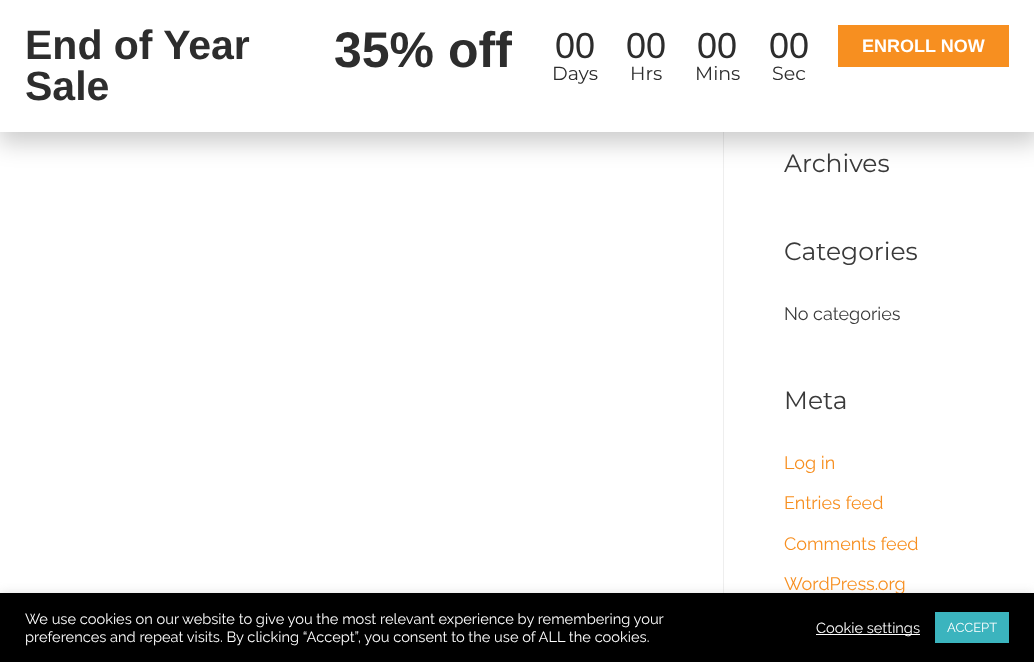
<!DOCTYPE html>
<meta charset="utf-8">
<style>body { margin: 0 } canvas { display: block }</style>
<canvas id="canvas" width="1034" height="662"></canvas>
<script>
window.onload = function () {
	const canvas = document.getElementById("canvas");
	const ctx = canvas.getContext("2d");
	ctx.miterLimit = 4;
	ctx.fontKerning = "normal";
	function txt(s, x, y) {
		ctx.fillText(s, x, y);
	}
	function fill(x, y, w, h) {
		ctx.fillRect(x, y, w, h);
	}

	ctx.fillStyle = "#FFFFFF";
	fill(0, 0, 1034, 662);
	ctx.fillStyle = "#EEEEEE";
	fill(723, 132, 1, 461);
	ctx.fillStyle = "rgba(0, 0, 0, 0.2)";
	ctx.filter = "blur(11.5px)";
	ctx.beginPath();
	ctx.rect(-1, 5, 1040, 138);
	ctx.fill();
	ctx.filter = "none";
	ctx.fillStyle = "#FFFFFF";
	fill(0, 0, 1034, 132);
	ctx.fillStyle = "#F78F20";
	fill(838, 25, 171, 42);
	ctx.fillStyle = "rgba(172, 171, 171, 0.3)";
	ctx.filter = "blur(5px)";
	ctx.beginPath();
	ctx.rect(0, 592, 1034, 69);
	ctx.fill();
	ctx.filter = "none";
	ctx.font = "bold 41px Liberation Sans";
	ctx.fillStyle = "#2D2D2D";
	txt("End of Year", 25, 59);
	txt("Sale", 25, 100);
	ctx.font = "bold 50px Liberation Sans";
	txt("35% off", 334, 67);
	ctx.font = "36px Liberation Sans";
	txt("00", 555, 58);
	ctx.font = "19px Montserrat";
	txt("Days", 552, 80);
	ctx.font = "36px Liberation Sans";
	txt("00", 626, 58);
	ctx.font = "19px Montserrat";
	txt("Hrs", 630, 80);
	ctx.font = "36px Liberation Sans";
	txt("00", 697, 58);
	ctx.font = "19px Montserrat";
	txt("Mins", 695, 80);
	ctx.font = "36px Liberation Sans";
	txt("00", 769, 58);
	ctx.font = "19px Montserrat";
	txt("Sec", 772, 80);
	ctx.font = "bold 18px Liberation Sans";
	ctx.fillStyle = "#FFFFFF";
	txt("ENROLL NOW", 862, 52);
	ctx.font = "25px Montserrat";
	ctx.fillStyle = "#3A3A3A";
	txt("Archives", 784, 172);
	txt("Categories", 784, 260);
	ctx.font = "18px Raleway";
	txt("No categories", 784, 320);
	ctx.font = "25px Montserrat";
	txt("Meta", 784, 409);
	ctx.font = "18px Raleway";
	ctx.fillStyle = "#F78F20";
	txt("Log in", 784, 469);
	txt("Entries feed", 784, 509);
	txt("Comments feed", 784, 550);
	txt("WordPress.org", 784, 590);
	ctx.fillStyle = "#000000";
	fill(0, 593, 1034, 69);
	ctx.font = "14.65px Raleway";
	ctx.fillStyle = "#FFFFFF";
	txt("We use cookies on our website to give you the most relevant experience by remembering your", 25, 624);
	txt("preferences and repeat visits. By clicking “Accept”, you consent to the use of ALL the cookies.", 25, 642);
	fill(816, 634, 104, 1);
	txt("Cookie settings", 816, 633);
	ctx.fillStyle = "#3BB4BE";
	fill(935, 612, 74, 31);
	ctx.font = "13px Raleway";
	ctx.fillStyle = "#FFFFFF";
	txt("ACCEPT", 947, 632);
};
</script>
